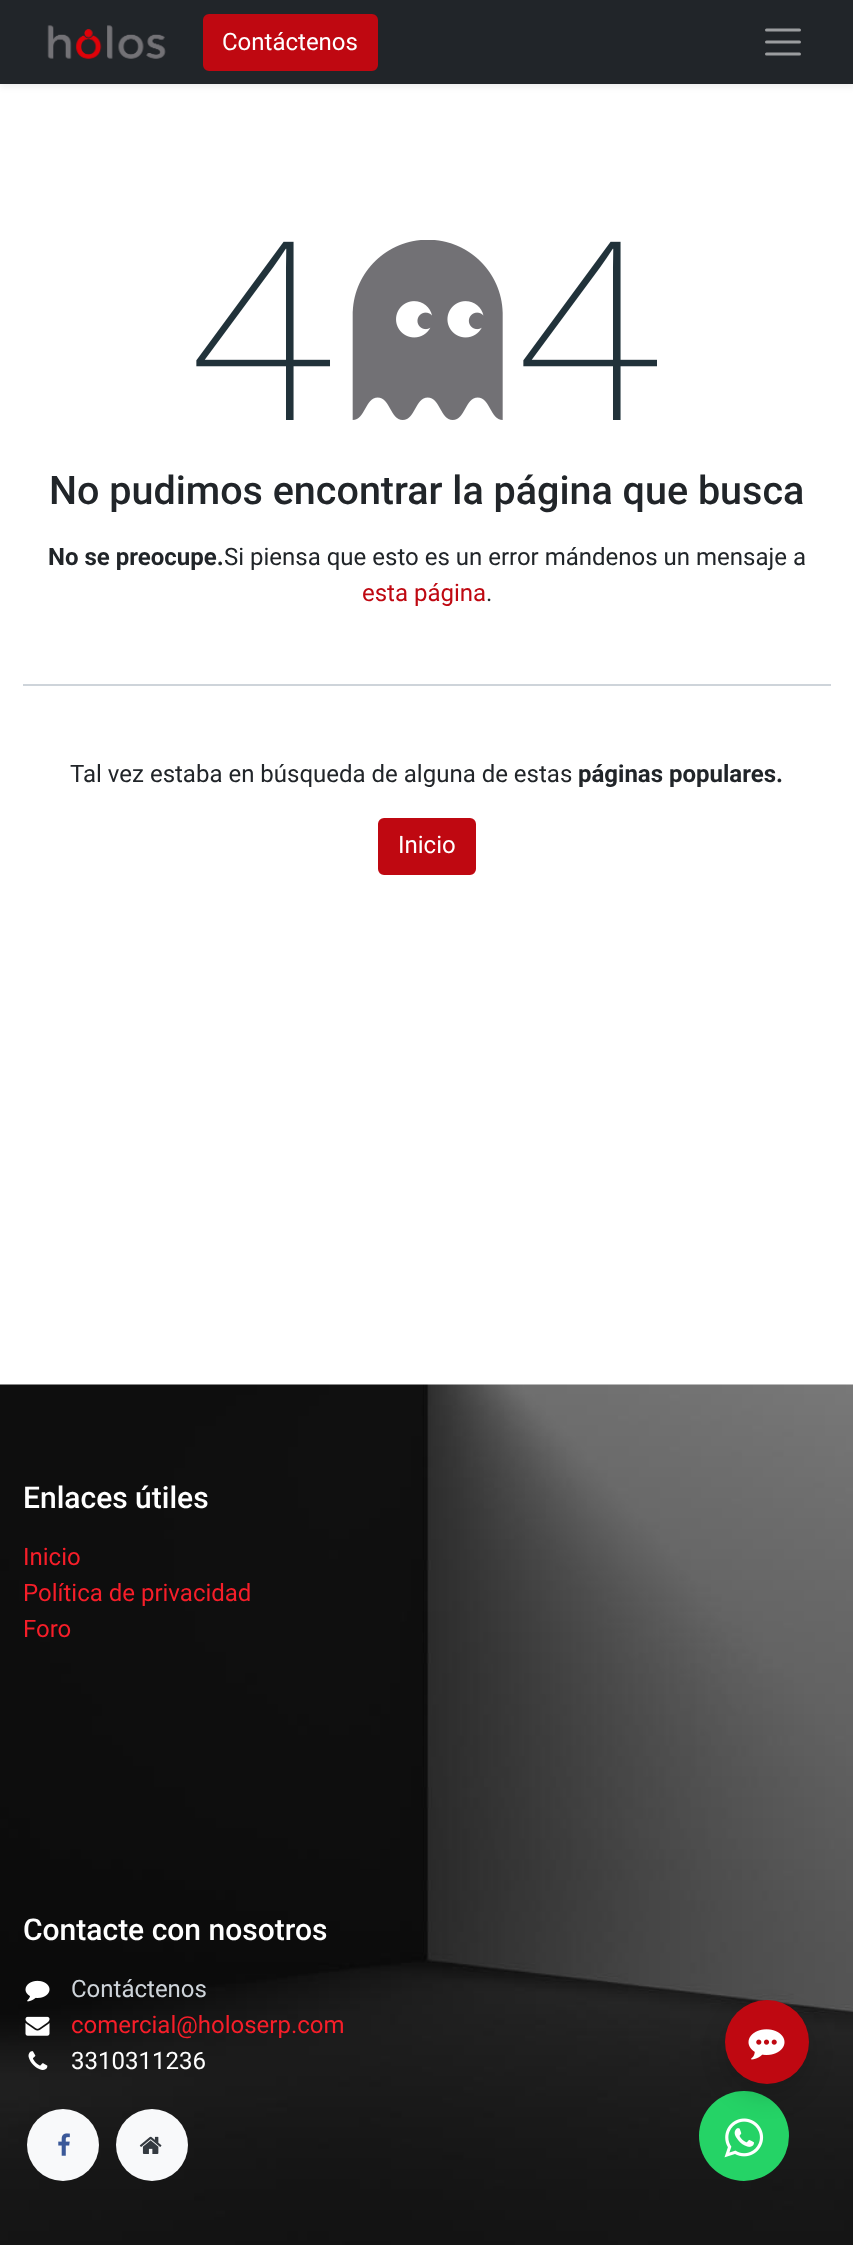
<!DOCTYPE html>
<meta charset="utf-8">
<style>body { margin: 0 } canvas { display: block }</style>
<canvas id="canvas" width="853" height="2245"></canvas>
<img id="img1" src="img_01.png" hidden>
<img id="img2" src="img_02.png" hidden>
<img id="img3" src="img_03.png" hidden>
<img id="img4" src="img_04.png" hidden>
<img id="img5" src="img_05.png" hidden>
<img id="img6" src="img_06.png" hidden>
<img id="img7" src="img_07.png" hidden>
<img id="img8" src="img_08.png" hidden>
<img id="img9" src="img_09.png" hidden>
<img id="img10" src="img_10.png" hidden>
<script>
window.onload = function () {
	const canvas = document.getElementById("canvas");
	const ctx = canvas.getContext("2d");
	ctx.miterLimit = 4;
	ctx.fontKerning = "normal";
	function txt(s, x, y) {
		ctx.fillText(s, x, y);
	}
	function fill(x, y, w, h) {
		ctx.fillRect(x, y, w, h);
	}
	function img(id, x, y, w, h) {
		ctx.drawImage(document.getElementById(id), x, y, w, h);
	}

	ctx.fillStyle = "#FFFFFF";
	fill(0, 0, 853, 2245);
	ctx.fillStyle = "rgba(0, 0, 0, 0.07)";
	ctx.filter = "blur(3px)";
	ctx.beginPath();
	ctx.rect(0, 3, 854, 84);
	ctx.fill();
	ctx.filter = "none";
	ctx.fillStyle = "#212529";
	fill(0, 0, 853, 84);
	img("img1", 47, 25, 119, 34);
	ctx.fillStyle = "#BF0811";
	ctx.beginPath();
	ctx.roundRect(204, 15, 173, 55, 5);
	ctx.fill();
	ctx.strokeStyle = "#BF0811";
	ctx.lineWidth = 2;
	ctx.stroke();
	ctx.beginPath();
	ctx.moveTo(766.5, 30);
	ctx.lineTo(799.5, 30);
	ctx.moveTo(766.5, 42);
	ctx.lineTo(799.5, 42);
	ctx.moveTo(766.5, 54);
	ctx.lineTo(799.5, 54);
	ctx.strokeStyle = "#9B9D9F";
	ctx.lineWidth = 3;
	ctx.lineCap = "round";
	ctx.stroke();
	img("img2", 196, 240, 461, 180);
	ctx.fillStyle = "#CED4DA";
	fill(23, 684, 808, 2);
	ctx.fillStyle = "#BF0811";
	ctx.beginPath();
	ctx.roundRect(379, 819, 96, 55, 5);
	ctx.fill();
	ctx.strokeStyle = "#BF0811";
	ctx.lineWidth = 2;
	ctx.stroke();
	img("img3", 0, 1384, 853, 861);
	img("img4", 25, 1980, 25, 22);
	img("img5", 25, 2016, 25, 20);
	img("img6", 28, 2051, 20, 19);
	ctx.fillStyle = "#F8F9FA";
	ctx.beginPath();
	ctx.arc(63, 2145, 36, 0, Math.PI * 2);
	ctx.fill();
	img("img7", 58, 2133, 12, 23);
	ctx.beginPath();
	ctx.arc(152, 2145, 36, 0, Math.PI * 2);
	ctx.fill();
	img("img8", 139, 2136, 23, 18);
	ctx.fillStyle = "#25D366";
	ctx.beginPath();
	ctx.arc(744, 2136, 45, 0, Math.PI * 2);
	ctx.fill();
	img("img9", 724, 2118, 40, 40);
	ctx.fillStyle = "rgba(0, 0, 0, 0.15)";
	ctx.filter = "blur(12px)";
	ctx.beginPath();
	ctx.roundRect(725, 2012, 84, 84, 42);
	ctx.fill();
	ctx.filter = "none";
	ctx.fillStyle = "#BF0811";
	ctx.beginPath();
	ctx.arc(767, 2042, 42, 0, Math.PI * 2);
	ctx.fill();
	img("img10", 748, 2029, 37, 31);
	ctx.font = "24px Roboto";
	ctx.fillStyle = "#FFFFFF";
	txt("Contáctenos", 222, 50);
	ctx.font = "500 39.5px Roboto";
	ctx.fillStyle = "#212529";
	txt("No pudimos encontrar la página que busca", 49, 504);
	ctx.font = "bold 24px Roboto";
	txt("No se preocupe.", 48, 565);
	ctx.font = "24px Roboto";
	txt("Si piensa que esto es un error mándenos un mensaje a", 224, 565);
	ctx.fillStyle = "#BF0811";
	txt("esta página", 362, 601);
	ctx.fillStyle = "#212529";
	txt(".", 486, 601);
	txt("Tal vez estaba en búsqueda de alguna de estas", 70, 782);
	ctx.font = "bold 24px Roboto";
	txt("páginas populares.", 578, 782);
	ctx.font = "24px Roboto";
	ctx.fillStyle = "#FFFFFF";
	txt("Inicio", 398, 853);
	ctx.font = "500 30px Roboto";
	txt("Enlaces útiles", 23, 1508);
	ctx.font = "24px Roboto";
	ctx.fillStyle = "#F61E29";
	txt("Inicio", 23, 1565);
	txt("Política de privacidad", 23, 1601);
	txt("Foro", 23, 1637);
	ctx.font = "500 30px Roboto";
	ctx.fillStyle = "#FFFFFF";
	txt("Contacte con nosotros", 23, 1940);
	ctx.font = "24px Roboto";
	ctx.fillStyle = "#CED4DA";
	txt("Contáctenos", 71, 1997);
	ctx.fillStyle = "#F61E29";
	txt("comercial@holoserp.com", 71, 2033);
	ctx.fillStyle = "#FFFFFF";
	txt("3310311236", 71, 2069);
};
</script>
